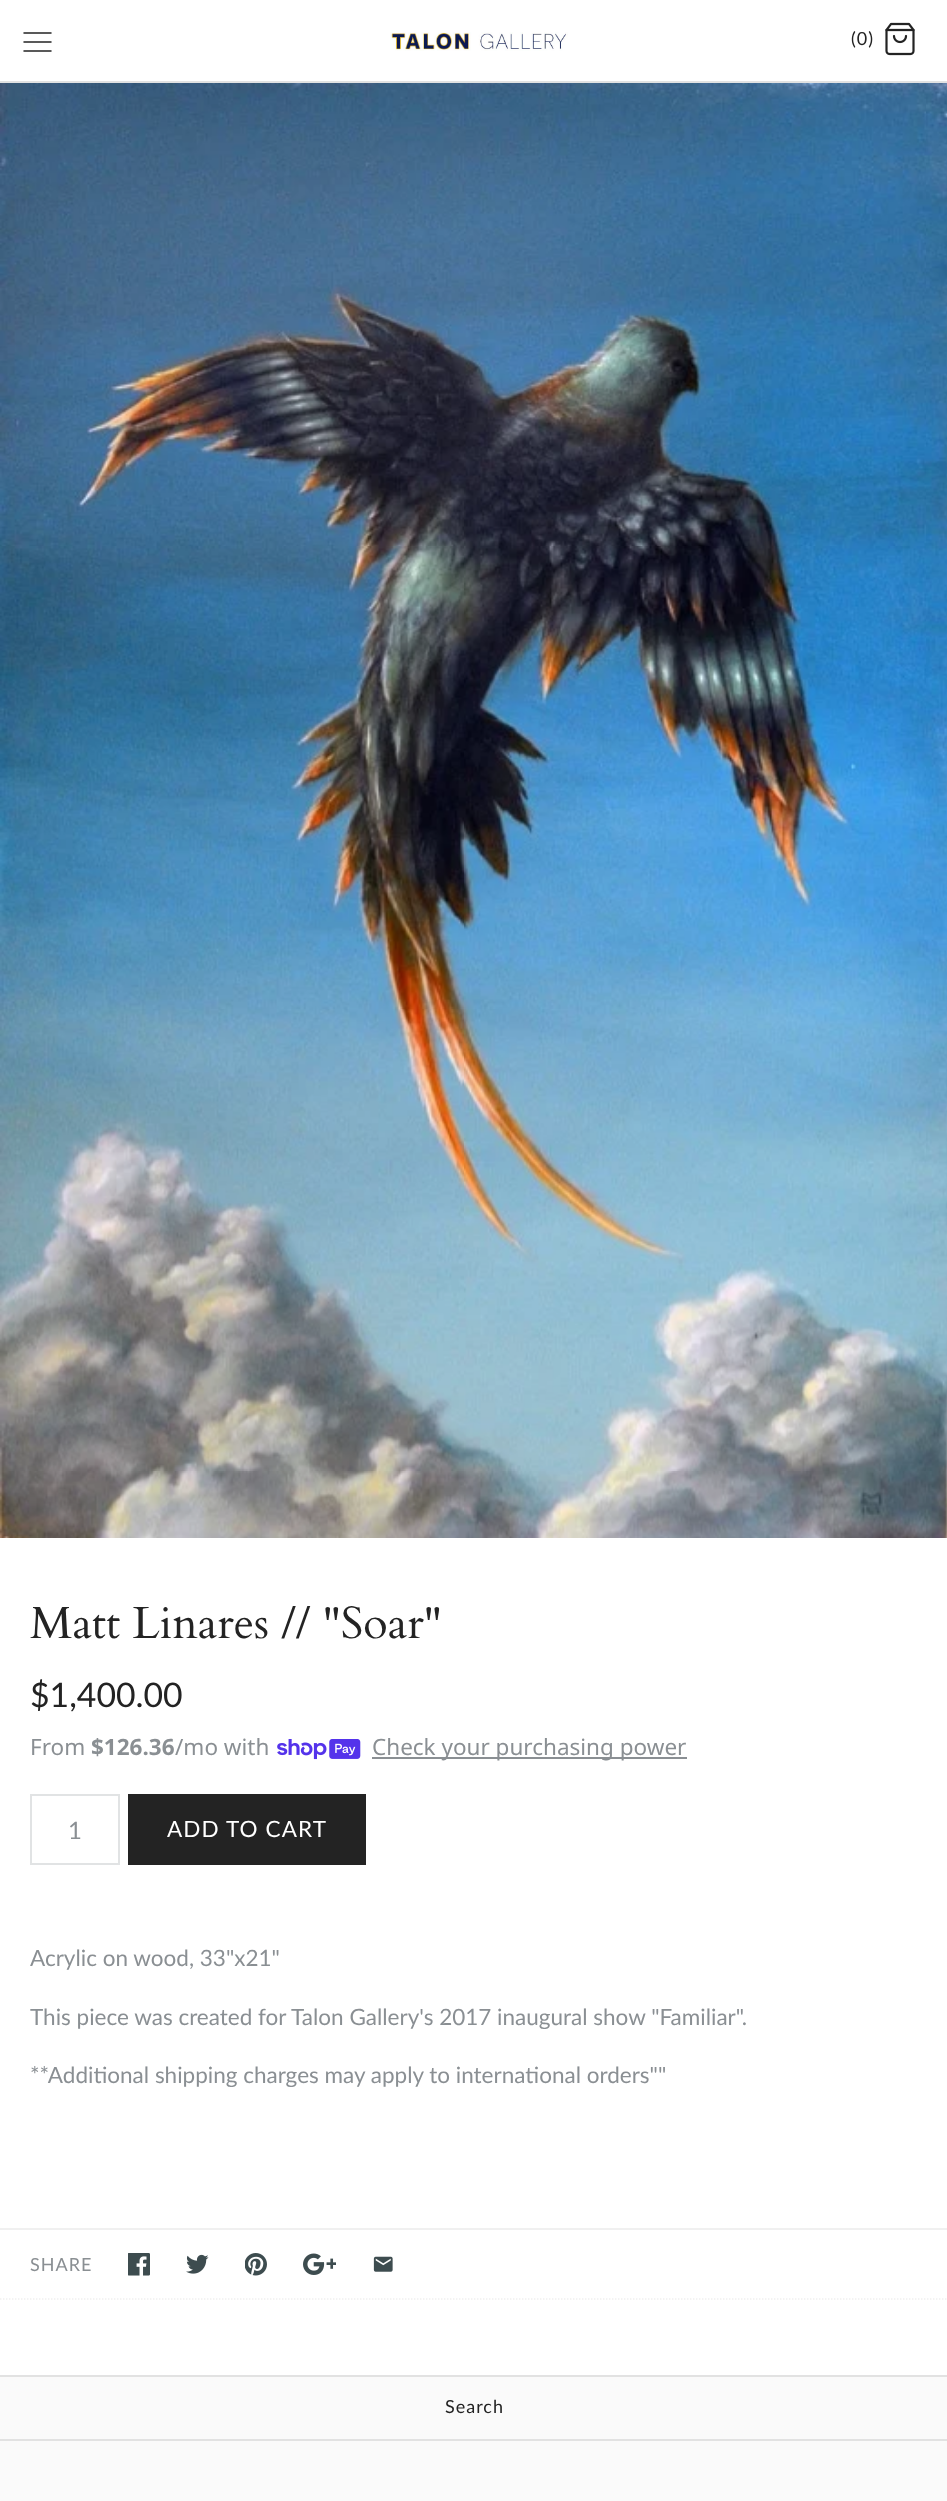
<!DOCTYPE html>
<meta charset="utf-8">
<style>body { margin: 0 } canvas { display: block }</style>
<canvas id="canvas" width="947" height="2501"></canvas>
<img id="img1" src="img_01.png" hidden>
<img id="img2" src="img_02.png" hidden>
<img id="img3" src="img_03.png" hidden>
<img id="img4" src="img_04.png" hidden>
<img id="img5" src="img_05.png" hidden>
<img id="img6" src="img_06.png" hidden>
<img id="img7" src="img_07.png" hidden>
<img id="img8" src="img_08.png" hidden>
<img id="img9" src="img_09.png" hidden>
<script>
window.onload = function () {
	const canvas = document.getElementById("canvas");
	const ctx = canvas.getContext("2d");
	ctx.miterLimit = 4;
	ctx.fontKerning = "normal";
	function txt(s, x, y) {
		ctx.fillText(s, x, y);
	}
	function fill(x, y, w, h) {
		ctx.fillRect(x, y, w, h);
	}
	function img(id, x, y, w, h) {
		ctx.drawImage(document.getElementById(id), x, y, w, h);
	}

	ctx.fillStyle = "#FFFFFF";
	fill(0, 0, 947, 2501);
	ctx.fillStyle = "#E2E2E2";
	fill(0, 81, 947, 2);
	ctx.beginPath();
	ctx.moveTo(24, 42);
	ctx.lineTo(51, 42);
	ctx.moveTo(24, 33);
	ctx.lineTo(51, 33);
	ctx.moveTo(24, 51);
	ctx.lineTo(51, 51);
	ctx.strokeStyle = "#232323";
	ctx.lineWidth = 1.5;
	ctx.lineCap = "round";
	ctx.lineJoin = "round";
	ctx.stroke();
	img("img1", 390, 32, 178, 19);
	img("img2", 885, 22, 30, 34);
	img("img3", 0, 83, 947, 1455);
	img("img4", 277, 1739, 84, 21);
	ctx.fillStyle = "#8A8F93";
	fill(372, 1757, 315, 2);
	ctx.strokeStyle = "#E1E3E4";
	ctx.lineWidth = 2;
	ctx.lineJoin = "miter";
	ctx.strokeRect(31, 1795, 88, 69);
	ctx.fillStyle = "#232323";
	fill(128, 1794, 238, 71);
	ctx.fillStyle = "#F0F0F0";
	fill(0, 2228, 947, 2);
	ctx.beginPath();
	ctx.moveTo(0, 2299);
	ctx.lineTo(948, 2299);
	ctx.strokeStyle = "#F0F0F0";
	ctx.lineWidth = 1.5;
	ctx.lineCap = "butt";
	ctx.setLineDash([1.5, 1.5]);
	ctx.stroke();
	img("img5", 128, 2253, 22, 23);
	img("img6", 186, 2254, 23, 20);
	img("img7", 245, 2253, 22, 23);
	img("img8", 303, 2253, 33, 22);
	img("img9", 373, 2256, 20, 16);
	ctx.fillStyle = "#FAFAFA";
	fill(0, 2377, 947, 124);
	ctx.fillStyle = "#E2E2E2";
	fill(0, 2375, 947, 2);
	fill(0, 2439, 947, 2);
	ctx.letterSpacing = "1px";
	ctx.font = "18px Lato";
	ctx.fillStyle = "#232323";
	txt("(0)", 851, 45);
	ctx.letterSpacing = "0px";
	ctx.font = "45px Cardo";
	txt("Matt Linares // \"Soar\"", 30, 1638);
	ctx.font = "33.75px Lato";
	txt("$1,400.00", 30, 1707);
	ctx.font = "22.5px Noto Sans";
	ctx.fillStyle = "#8A8F93";
	txt("From", 30, 1755);
	ctx.font = "bold 22.5px Noto Sans";
	txt("$126.36", 91, 1755);
	ctx.font = "22.5px Noto Sans";
	txt("/mo with", 175, 1755);
	txt("Check your purchasing power", 372, 1755);
	ctx.font = "24px Lato";
	txt("1", 68, 1839);
	ctx.letterSpacing = "1.1px";
	ctx.font = "22.5px Lato";
	ctx.fillStyle = "#FFFFFF";
	txt("ADD TO CART", 167, 1837);
	ctx.letterSpacing = "0px";
	ctx.fillStyle = "#8A8F93";
	txt("Acrylic on wood, 33\"x21\"", 30, 1966);
	txt("This piece was created for Talon Gallery's 2017 inaugural show \"Familiar\".", 30, 2025);
	txt("**Additional shipping charges may apply to international orders\"\"", 30, 2083);
	ctx.letterSpacing = "1px";
	ctx.font = "18px Lato";
	txt("SHARE", 30, 2271);
	ctx.fillStyle = "#232323";
	txt("Search", 445, 2413);
};
</script>
